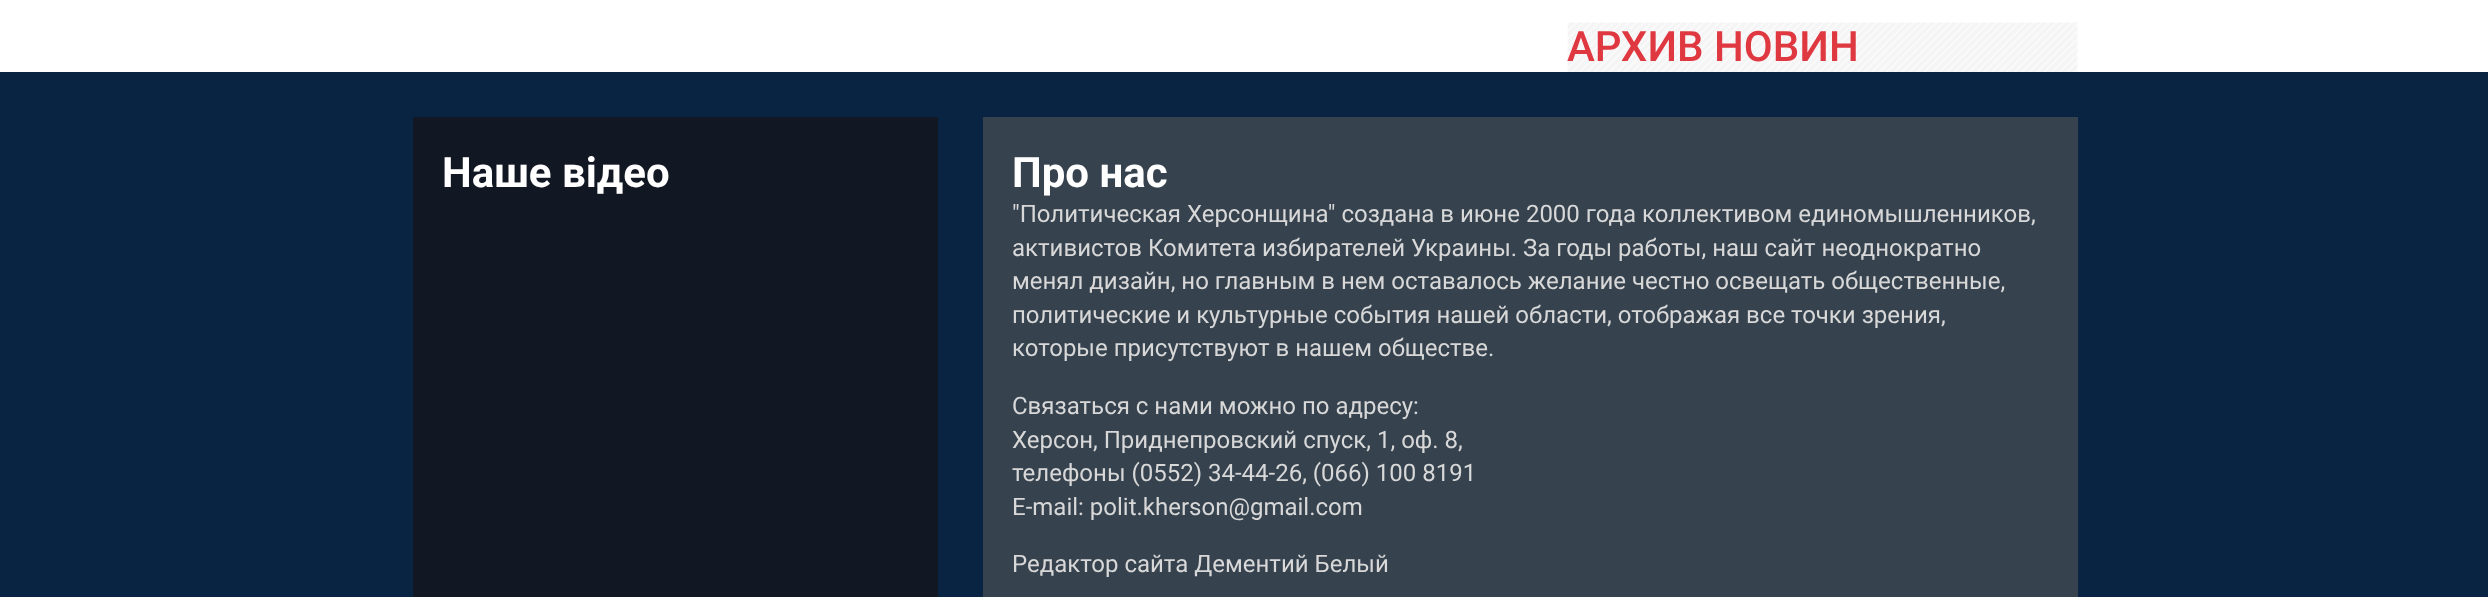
<!DOCTYPE html>
<meta charset="utf-8">
<style>body { margin: 0 } canvas { display: block }</style>
<canvas id="canvas" width="2488" height="597"></canvas>
<img id="img1" src="img_01.png" hidden>
<script>
window.onload = function () {
	const canvas = document.getElementById("canvas");
	const ctx = canvas.getContext("2d");
	ctx.miterLimit = 4;
	ctx.fontKerning = "normal";
	function txt(s, x, y) {
		ctx.fillText(s, x, y);
	}
	function fill(x, y, w, h) {
		ctx.fillRect(x, y, w, h);
	}
	function img(id, x, y, w, h) {
		ctx.drawImage(document.getElementById(id), x, y, w, h);
	}

	ctx.fillStyle = "#FFFFFF";
	fill(0, 0, 2488, 597);
	img("img1", 1567, 22, 511, 50);
	ctx.fillStyle = "#082442";
	fill(0, 72, 2488, 525);
	ctx.fillStyle = "#121823";
	fill(413, 117, 525, 480);
	ctx.fillStyle = "#36434F";
	fill(983, 117, 1095, 480);
	ctx.font = "500 42px Roboto";
	ctx.fillStyle = "#DF3840";
	txt("АРХИВ НОВИН", 1567, 61);
	ctx.font = "bold 42px Roboto";
	ctx.fillStyle = "#FFFFFF";
	txt("Наше відео", 442, 187);
	txt("Про нас", 1012, 187);
	ctx.font = "24px Roboto";
	ctx.fillStyle = "#D8D8D8";
	txt("\"Политическая Херсонщина\" создана в июне 2000 года коллективом единомышленников,", 1012, 222);
	txt("активистов Комитета избирателей Украины. За годы работы, наш сайт неоднократно", 1012, 256);
	txt("менял дизайн, но главным в нем оставалось желание честно освещать общественные,", 1012, 289);
	txt("политические и культурные события нашей области, отображая все точки зрения,", 1012, 323);
	txt("которые присутствуют в нашем обществе.", 1012, 356);
	txt("Связаться с нами можно по адресу:", 1012, 414);
	txt("Херсон, Приднепровский спуск, 1, оф. 8,", 1012, 448);
	txt("телефоны (0552) 34-44-26, (066) 100 8191", 1012, 481);
	txt("E-mail: polit.kherson@gmail.com", 1012, 515);
	txt("Редактор сайта Дементий Белый", 1012, 572);
};
</script>
